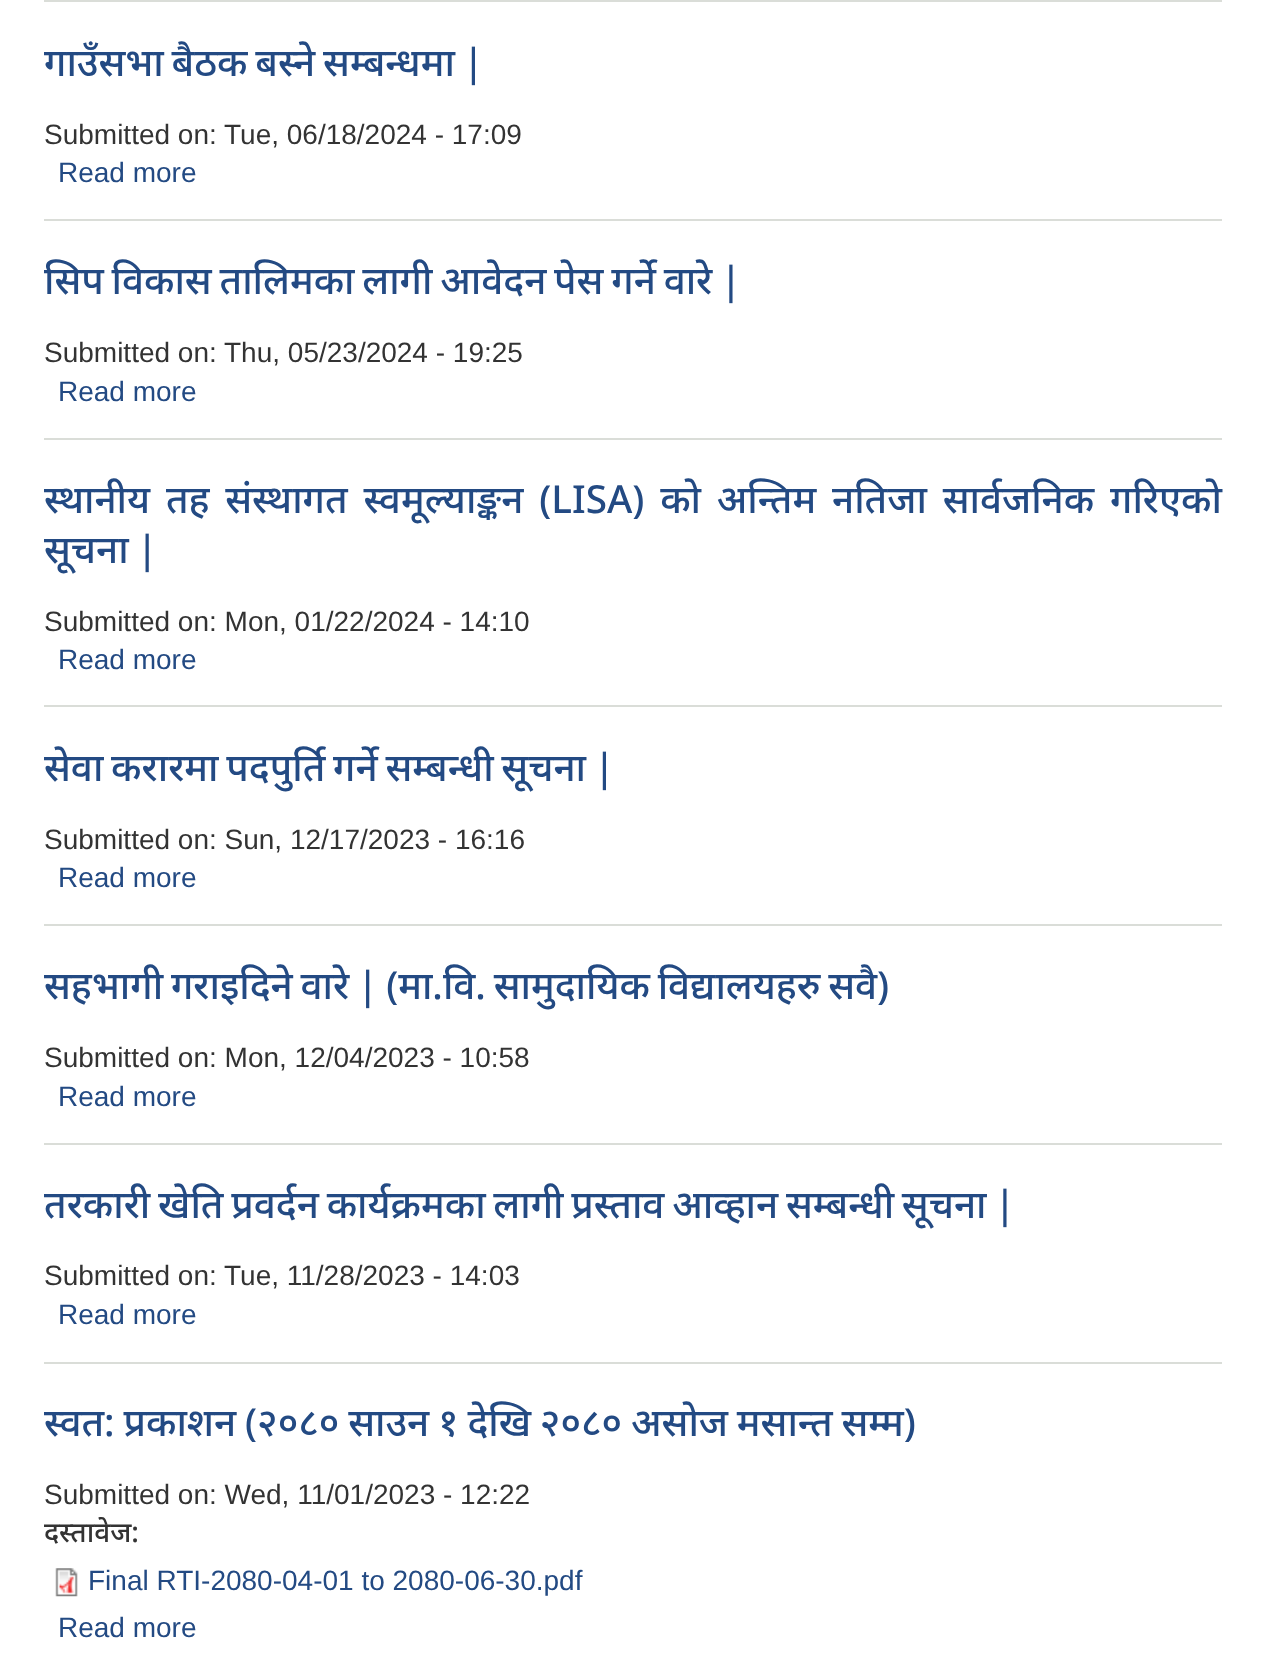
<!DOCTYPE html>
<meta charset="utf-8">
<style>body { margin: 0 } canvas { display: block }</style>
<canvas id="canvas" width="1265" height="1665"></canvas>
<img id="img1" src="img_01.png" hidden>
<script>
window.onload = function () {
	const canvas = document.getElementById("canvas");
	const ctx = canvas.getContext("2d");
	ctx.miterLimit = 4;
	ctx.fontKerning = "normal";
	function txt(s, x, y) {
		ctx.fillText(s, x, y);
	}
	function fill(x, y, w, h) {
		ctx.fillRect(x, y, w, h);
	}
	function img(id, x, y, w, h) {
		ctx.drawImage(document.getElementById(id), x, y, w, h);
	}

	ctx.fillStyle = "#FFFFFF";
	fill(0, 0, 1265, 1665);
	ctx.fillStyle = "#DADDD8";
	fill(44, 0, 1178, 2);
	fill(44, 219, 1178, 2);
	fill(44, 438, 1178, 2);
	fill(44, 705, 1178, 2);
	fill(44, 924, 1178, 2);
	fill(44, 1143, 1178, 2);
	fill(44, 1362, 1178, 2);
	img("img1", 55, 1568, 23, 29);
	ctx.wordSpacing = "-2.25px";
	ctx.font = "500 38.7px Noto Sans";
	ctx.fillStyle = "#234A83";
	txt("गाउँसभा बैठक बस्ने सम्बन्धमा |", 44, 76);
	ctx.wordSpacing = "0px";
	ctx.font = "28px Liberation Sans";
	ctx.fillStyle = "#333333";
	txt("Submitted on:", 44, 144);
	txt("Tue, 06/18/2024 - 17:09", 224, 144);
	ctx.fillStyle = "#234A83";
	txt("Read more", 58, 182);
	ctx.wordSpacing = "-2.25px";
	ctx.font = "500 38.7px Noto Sans";
	txt("सिप विकास तालिमका लागी आवेदन पेस गर्ने वारे |", 44, 294);
	ctx.wordSpacing = "0px";
	ctx.font = "28px Liberation Sans";
	ctx.fillStyle = "#333333";
	txt("Submitted on:", 44, 362);
	txt("Thu, 05/23/2024 - 19:25", 224, 362);
	ctx.fillStyle = "#234A83";
	txt("Read more", 58, 401);
	ctx.wordSpacing = "5.75px";
	ctx.font = "500 38.7px Noto Sans";
	txt("स्थानीय तह संस्थागत स्वमूल्याङ्कन (LISA) को अन्तिम नतिजा सार्वजनिक गरिएको", 44, 513);
	ctx.wordSpacing = "-2.25px";
	txt("सूचना |", 44, 563);
	ctx.wordSpacing = "0px";
	ctx.font = "28px Liberation Sans";
	ctx.fillStyle = "#333333";
	txt("Submitted on: Mon, 01/22/2024 - 14:10", 44, 631);
	ctx.fillStyle = "#234A83";
	txt("Read more", 58, 669);
	ctx.wordSpacing = "-2.25px";
	ctx.font = "500 38.7px Noto Sans";
	txt("सेवा करारमा पदपुर्ति गर्ने सम्बन्धी सूचना |", 44, 781);
	ctx.wordSpacing = "0px";
	ctx.font = "28px Liberation Sans";
	ctx.fillStyle = "#333333";
	txt("Submitted on: Sun, 12/17/2023 - 16:16", 44, 849);
	ctx.fillStyle = "#234A83";
	txt("Read more", 58, 887);
	ctx.wordSpacing = "-2.25px";
	ctx.font = "500 38.7px Noto Sans";
	txt("सहभागी गराइदिने वारे | (मा.वि. सामुदायिक विद्यालयहरु सवै)", 44, 999);
	ctx.wordSpacing = "0px";
	ctx.font = "28px Liberation Sans";
	ctx.fillStyle = "#333333";
	txt("Submitted on: Mon, 12/04/2023 - 10:58", 44, 1067);
	ctx.fillStyle = "#234A83";
	txt("Read more", 58, 1106);
	ctx.wordSpacing = "-2.25px";
	ctx.font = "500 38.7px Noto Sans";
	txt("तरकारी खेति प्रवर्दन कार्यक्रमका लागी प्रस्ताव आव्हान सम्बन्धी सूचना |", 44, 1218);
	ctx.wordSpacing = "0px";
	ctx.font = "28px Liberation Sans";
	ctx.fillStyle = "#333333";
	txt("Submitted on:", 44, 1285);
	txt("Tue, 11/28/2023 - 14:03", 224, 1285);
	ctx.fillStyle = "#234A83";
	txt("Read more", 58, 1324);
	ctx.wordSpacing = "-1.25px";
	ctx.font = "500 38.7px Noto Sans";
	txt("स्वत: प्रकाशन (२०८० साउन १ देखि २०८० असोज मसान्त सम्म)", 44, 1436);
	ctx.wordSpacing = "0px";
	ctx.font = "28px Liberation Sans";
	ctx.fillStyle = "#333333";
	txt("Submitted on: Wed, 11/01/2023 - 12:22", 44, 1504);
	ctx.font = "500 28px Noto Sans";
	txt("दस्तावेज:", 44, 1542);
	ctx.font = "28px Liberation Sans";
	ctx.fillStyle = "#234A83";
	txt("Final RTI-2080-04-01 to 2080-06-30.pdf", 88, 1590);
	txt("Read more", 58, 1637);
};
</script>
